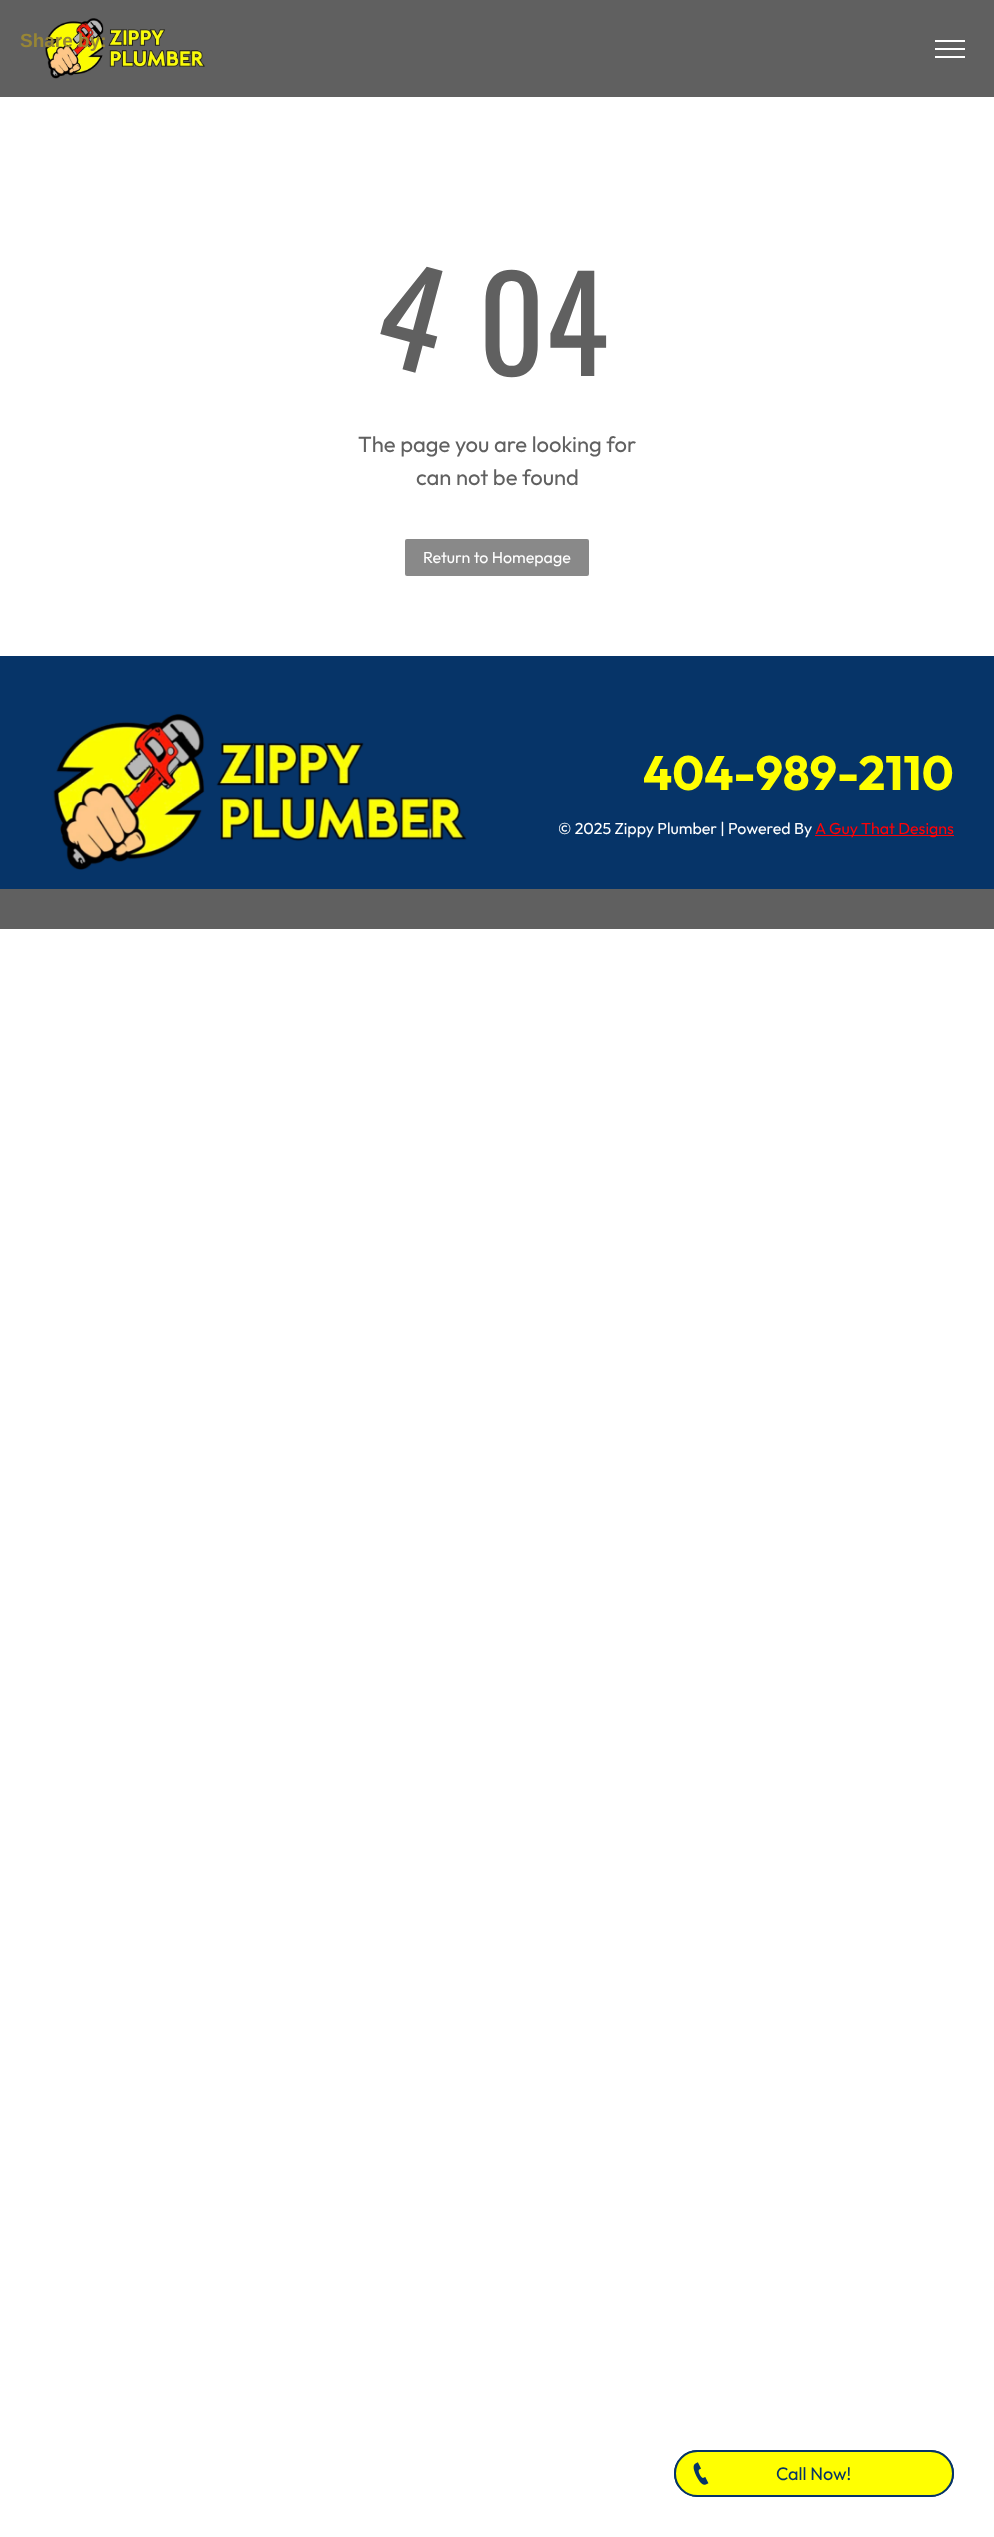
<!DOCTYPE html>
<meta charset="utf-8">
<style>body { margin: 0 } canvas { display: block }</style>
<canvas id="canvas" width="994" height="2537"></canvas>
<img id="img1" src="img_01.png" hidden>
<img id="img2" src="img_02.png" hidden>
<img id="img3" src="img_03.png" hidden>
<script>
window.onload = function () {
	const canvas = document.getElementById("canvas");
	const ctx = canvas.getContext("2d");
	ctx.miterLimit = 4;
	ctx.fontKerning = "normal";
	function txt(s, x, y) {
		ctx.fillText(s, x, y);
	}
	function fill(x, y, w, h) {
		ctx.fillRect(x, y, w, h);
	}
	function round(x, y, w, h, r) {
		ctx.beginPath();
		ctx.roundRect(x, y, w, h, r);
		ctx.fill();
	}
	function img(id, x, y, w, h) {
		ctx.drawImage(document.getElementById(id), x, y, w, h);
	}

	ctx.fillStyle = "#FFFFFF";
	fill(0, 0, 994, 2537);
	ctx.fillStyle = "#606060";
	fill(0, 0, 994, 97);
	img("img1", 45, 18, 160, 61);
	ctx.fillStyle = "#FFFFFF";
	fill(935, 40, 30, 2);
	fill(935, 48, 30, 2);
	fill(935, 56, 30, 2);
	ctx.fillStyle = "#898989";
	round(405, 539, 184, 37, 2);
	ctx.fillStyle = "#606060";
	fill(0, 889, 994, 40);
	ctx.fillStyle = "#063468";
	fill(0, 656, 994, 233);
	img("img2", 53, 713, 414, 157);
	ctx.fillStyle = "#FE0206";
	fill(815, 835, 139, 1);
	ctx.beginPath();
	ctx.roundRect(675, 2451, 278, 45, 22.5);
	ctx.strokeStyle = "#063468";
	ctx.lineWidth = 2;
	ctx.stroke();
	ctx.fillStyle = "#FFFF01";
	ctx.beginPath();
	ctx.roundRect(675, 2451, 278, 45, 22.5);
	ctx.fill();
	ctx.stroke();
	img("img3", 693, 2462, 16, 23);
	ctx.font = "bold 19px Liberation Sans";
	ctx.fillStyle = "#988635";
	txt("Share by:", 20, 47);
	ctx.font = "130px Oswald";
	ctx.fillStyle = "#606060";
	ctx.save();
	ctx.translate(368, 360);
	ctx.rotate(15 * Math.PI / 180);
	ctx.fillText("4", 0, 0);
	ctx.restore();
	txt("04", 478, 376);
	ctx.font = "22px Outfit";
	txt("The page you are looking for", 358, 452);
	txt("can not be found", 416, 485);
	ctx.font = "16px Outfit";
	ctx.fillStyle = "#FFFFFF";
	txt("Return to Homepage", 423, 563);
	ctx.font = "bold 48px Outfit";
	ctx.fillStyle = "#FFFF01";
	txt("404-989-2110", 643, 790);
	ctx.font = "16px Outfit";
	ctx.fillStyle = "#FFFFFF";
	txt("© 2025 Zippy Plumber | Powered By", 558, 834);
	ctx.fillStyle = "#FE0206";
	txt("A Guy That Designs", 815, 834);
	ctx.font = "18px Outfit";
	ctx.fillStyle = "#063468";
	txt("Call Now!", 776, 2480);
};
</script>
